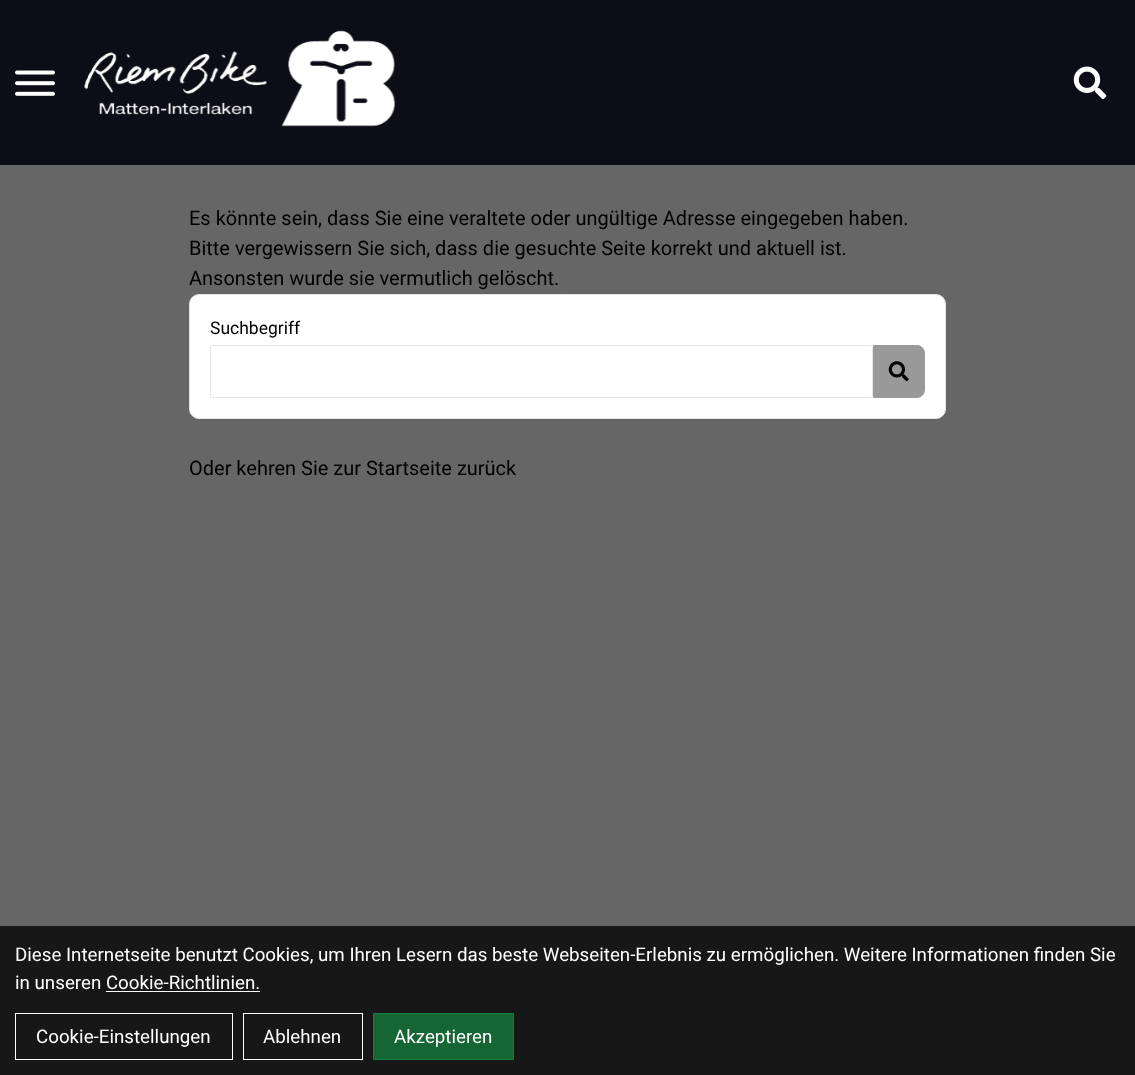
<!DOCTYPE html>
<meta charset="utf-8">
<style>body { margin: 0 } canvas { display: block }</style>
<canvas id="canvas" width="1135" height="1075"></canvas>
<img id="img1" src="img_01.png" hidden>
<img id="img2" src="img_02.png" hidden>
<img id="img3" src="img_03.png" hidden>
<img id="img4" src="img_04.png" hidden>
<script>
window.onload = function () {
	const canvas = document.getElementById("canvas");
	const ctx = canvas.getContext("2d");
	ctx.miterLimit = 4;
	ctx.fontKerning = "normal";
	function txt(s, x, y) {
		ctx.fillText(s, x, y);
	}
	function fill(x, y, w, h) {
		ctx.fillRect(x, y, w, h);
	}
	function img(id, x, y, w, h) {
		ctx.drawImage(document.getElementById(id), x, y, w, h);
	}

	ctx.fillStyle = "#666666";
	fill(0, 0, 1135, 1075);
	ctx.fillStyle = "#0D0D17";
	fill(0, 0, 1135, 165);
	img("img1", 15, 70, 40, 26);
	img("img2", 84, 30, 311, 97);
	img("img3", 1073, 66, 34, 33);
	ctx.fillStyle = "#FFFFFF";
	ctx.beginPath();
	ctx.roundRect(189.5, 294.5, 756, 124, 9.5);
	ctx.fill();
	ctx.strokeStyle = "#E5E5E5";
	ctx.stroke();
	ctx.beginPath();
	ctx.roundRect(210.5, 345.5, 662, 52, 2);
	ctx.stroke();
	ctx.fillStyle = "#999999";
	ctx.beginPath();
	ctx.roundRect(873.5, 345.5, 51, 52, [0, 7.5, 7.5, 0]);
	ctx.fill();
	ctx.strokeStyle = "#999999";
	ctx.stroke();
	img("img4", 888, 361, 21, 21);
	ctx.fillStyle = "#171717";
	fill(0, 926, 1135, 149);
	ctx.fillStyle = "#FFFFFF";
	fill(106, 991, 154, 1);
	ctx.strokeStyle = "#FFFFFF";
	ctx.strokeRect(15.5, 1013.5, 217, 46);
	ctx.strokeRect(243.5, 1013.5, 119, 46);
	ctx.fillStyle = "#166534";
	ctx.beginPath();
	ctx.rect(373.5, 1013.5, 140, 46);
	ctx.fill();
	ctx.strokeStyle = "#15803D";
	ctx.stroke();
	ctx.font = "20px Roboto";
	ctx.fillStyle = "#000000";
	txt("Es könnte sein, dass Sie eine veraltete oder ungültige Adresse eingegeben haben.", 189, 225);
	txt("Bitte vergewissern Sie sich, dass die gesuchte Seite korrekt und aktuell ist.", 189, 255);
	txt("Ansonsten wurde sie vermutlich gelöscht.", 189, 285);
	ctx.font = "17.5px Roboto";
	txt("Suchbegriff", 210, 334);
	ctx.font = "20px Roboto";
	txt("Oder kehren Sie zur Startseite zurück", 189, 475);
	ctx.font = "18.75px Roboto";
	ctx.fillStyle = "#FFFFFF";
	txt("Diese Internetseite benutzt Cookies, um Ihren Lesern das beste Webseiten-Erlebnis zu ermöglichen. Weitere Informationen finden Sie", 15, 961);
	txt("in unseren Cookie-Richtlinien.", 15, 989);
	txt("Cookie-Einstellungen", 36, 1043);
	txt("Ablehnen", 263, 1043);
	txt("Akzeptieren", 394, 1043);
};
</script>
